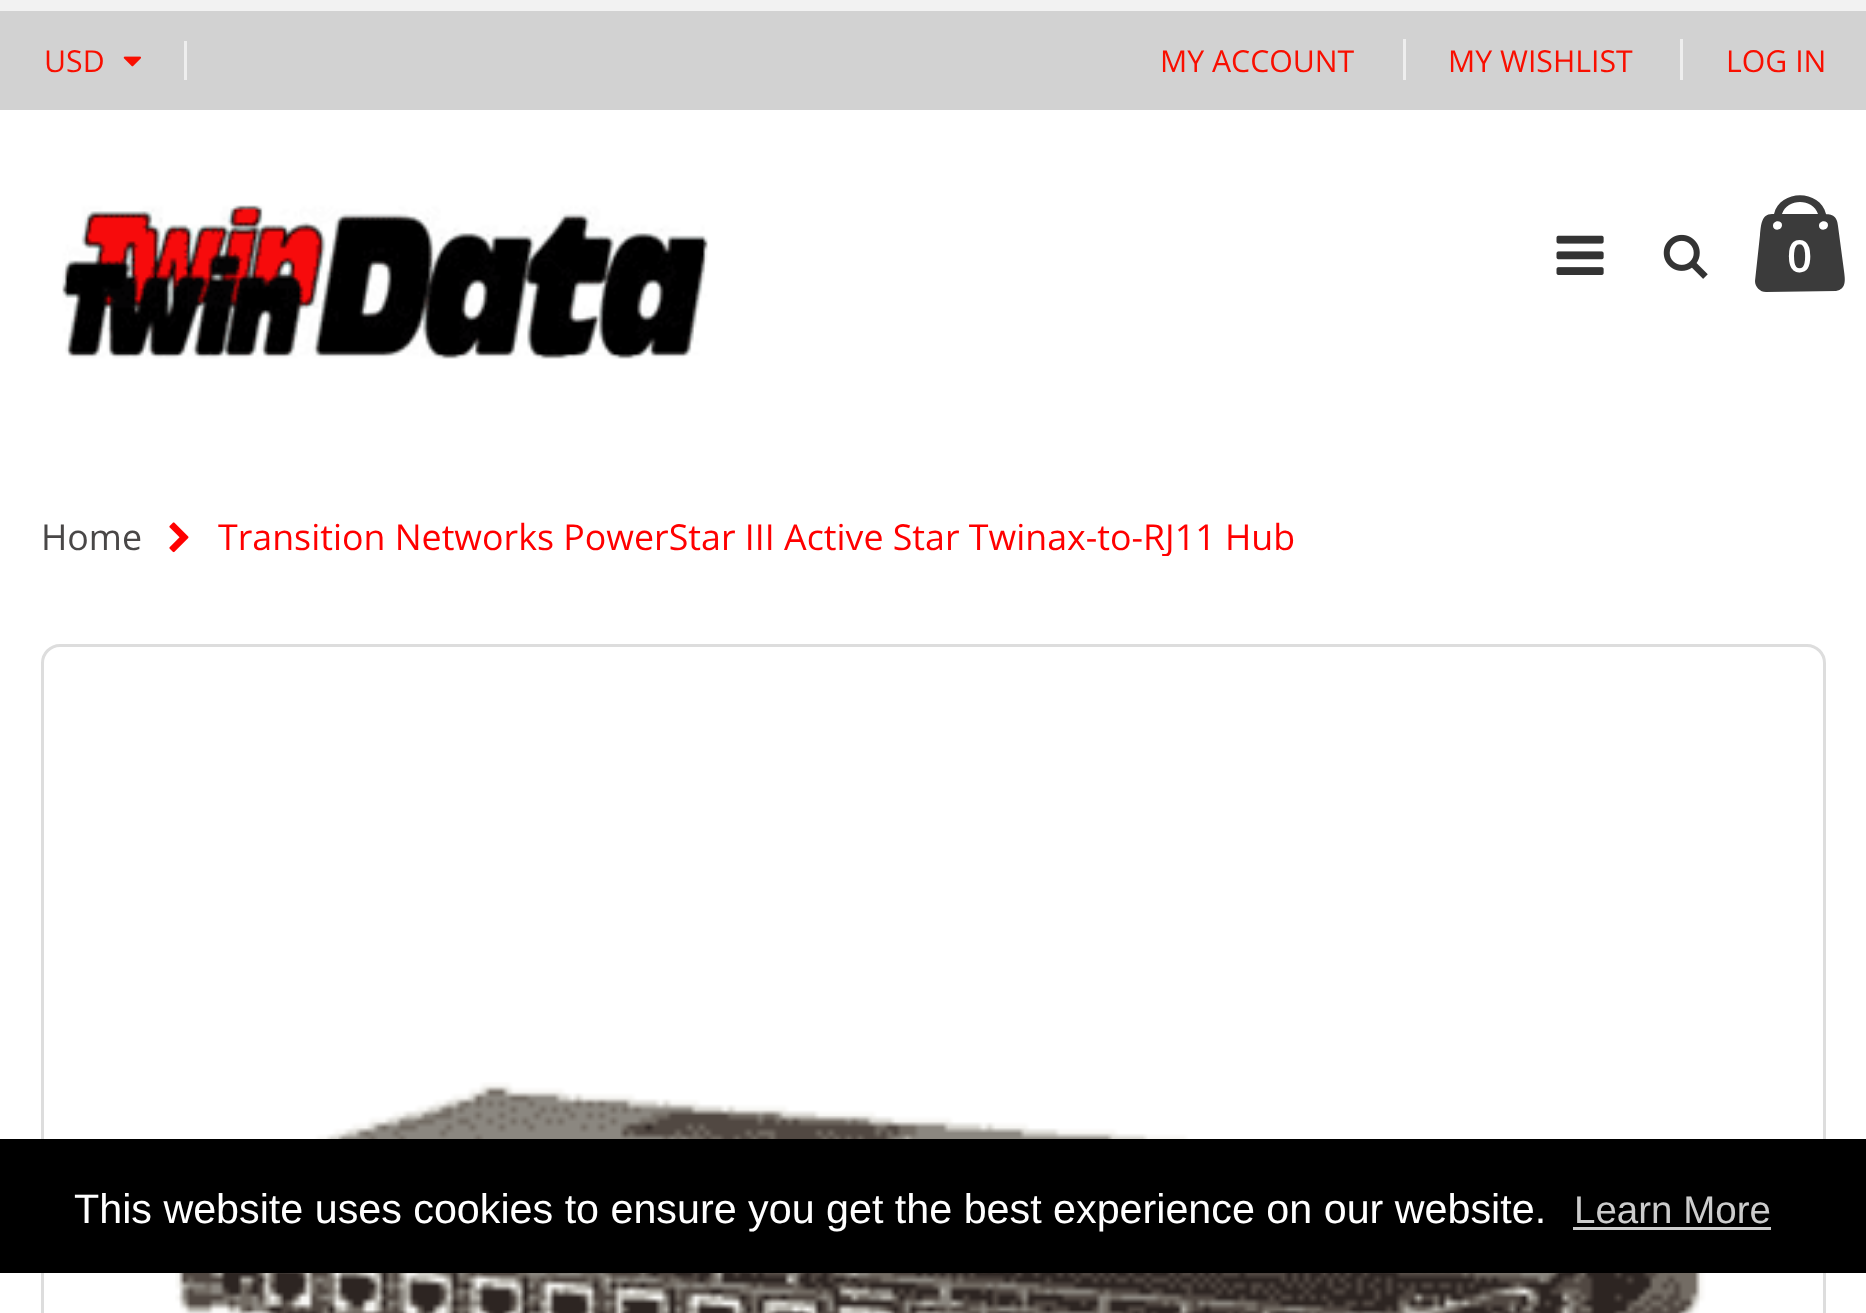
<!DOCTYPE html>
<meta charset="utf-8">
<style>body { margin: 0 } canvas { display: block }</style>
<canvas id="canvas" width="1866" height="1313"></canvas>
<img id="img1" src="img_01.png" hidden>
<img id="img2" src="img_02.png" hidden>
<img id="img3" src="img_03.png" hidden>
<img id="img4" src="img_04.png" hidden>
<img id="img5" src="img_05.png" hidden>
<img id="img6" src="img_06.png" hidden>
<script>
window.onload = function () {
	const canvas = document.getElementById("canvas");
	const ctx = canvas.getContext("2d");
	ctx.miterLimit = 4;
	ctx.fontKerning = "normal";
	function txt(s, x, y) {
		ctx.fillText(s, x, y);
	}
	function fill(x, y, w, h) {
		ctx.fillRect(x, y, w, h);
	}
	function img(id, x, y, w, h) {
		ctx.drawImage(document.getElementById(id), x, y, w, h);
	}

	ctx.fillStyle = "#FFFFFF";
	fill(0, 0, 1866, 1313);
	ctx.fillStyle = "#F2F2F2";
	fill(0, 0, 1866, 11);
	ctx.fillStyle = "#D2D2D2";
	fill(0, 11, 1866, 99);
	img("img1", 123, 56, 18, 11);
	ctx.fillStyle = "#EEEEEE";
	fill(184, 41, 3, 39);
	fill(1403, 39, 3, 41);
	fill(1680, 39, 3, 41);
	img("img2", 62, 205, 646, 154);
	img("img3", 1556, 235, 48, 40);
	img("img4", 1663, 234, 45, 45);
	ctx.fillStyle = "#3B3B3B";
	ctx.beginPath();
	ctx.moveTo(1773, 226);
	ctx.bezierCurveTo(1773, 220, 1782, 220, 1782, 225);
	ctx.bezierCurveTo(1782, 231, 1773, 231, 1773, 226);
	ctx.closePath();
	ctx.moveTo(1819, 226);
	ctx.bezierCurveTo(1819, 220, 1828, 220, 1828, 225);
	ctx.bezierCurveTo(1828, 231, 1819, 231, 1819, 226);
	ctx.closePath();
	ctx.moveTo(1772, 214);
	ctx.bezierCurveTo(1761, 214, 1761, 226, 1760, 235);
	ctx.lineTo(1755, 281);
	ctx.bezierCurveTo(1755, 287, 1760, 292, 1766, 292);
	ctx.lineTo(1836, 291);
	ctx.bezierCurveTo(1847, 289, 1845, 279, 1844, 271);
	ctx.lineTo(1838, 226);
	ctx.bezierCurveTo(1837, 213, 1829, 214, 1818, 214);
	ctx.closePath();
	ctx.moveTo(1826, 214);
	ctx.bezierCurveTo(1820, 189, 1780, 189, 1774, 214);
	ctx.lineTo(1782, 214);
	ctx.bezierCurveTo(1787, 198, 1813, 198, 1818, 214);
	ctx.closePath();
	ctx.fill();
	img("img5", 169, 522, 20, 31);
	ctx.beginPath();
	ctx.roundRect(42.5, 645.5, 1782, 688, 17.5);
	ctx.strokeStyle = "#DDDDDD";
	ctx.lineWidth = 3;
	ctx.stroke();
	img("img6", 175, 1082, 1531, 231);
	ctx.fillStyle = "#000000";
	fill(0, 1139, 1866, 134);
	ctx.fillStyle = "#CCCCCC";
	fill(1573, 1227, 198, 3);
	ctx.font = "30.25px Open Sans";
	ctx.fillStyle = "#F90F00";
	txt("USD", 44, 72);
	txt("MY ACCOUNT", 1160, 72);
	txt("MY WISHLIST", 1448, 72);
	txt("LOG IN", 1726, 72);
	ctx.font = "600 44px Open Sans";
	ctx.fillStyle = "#FFFFFF";
	txt("0", 1787, 272);
	ctx.font = "35.75px Open Sans";
	ctx.fillStyle = "#494747";
	txt("Home", 41, 550);
	ctx.save();
	ctx.beginPath();
	ctx.rect(41, 517, 1785, 39);
	ctx.clip();
	ctx.fillStyle = "#FF0000";
	txt("Transition Networks PowerStar III Active Star Twinax-to-RJ11 Hub", 218, 550);
	ctx.restore();
	ctx.font = "41.25px Liberation Sans";
	ctx.fillStyle = "#FFFFFF";
	txt("This website uses cookies to ensure you get the best experience on our website.", 74, 1223);
	ctx.font = "38.5px Liberation Sans";
	ctx.fillStyle = "#CCCCCC";
	txt("Learn More", 1574, 1223);
};
</script>
